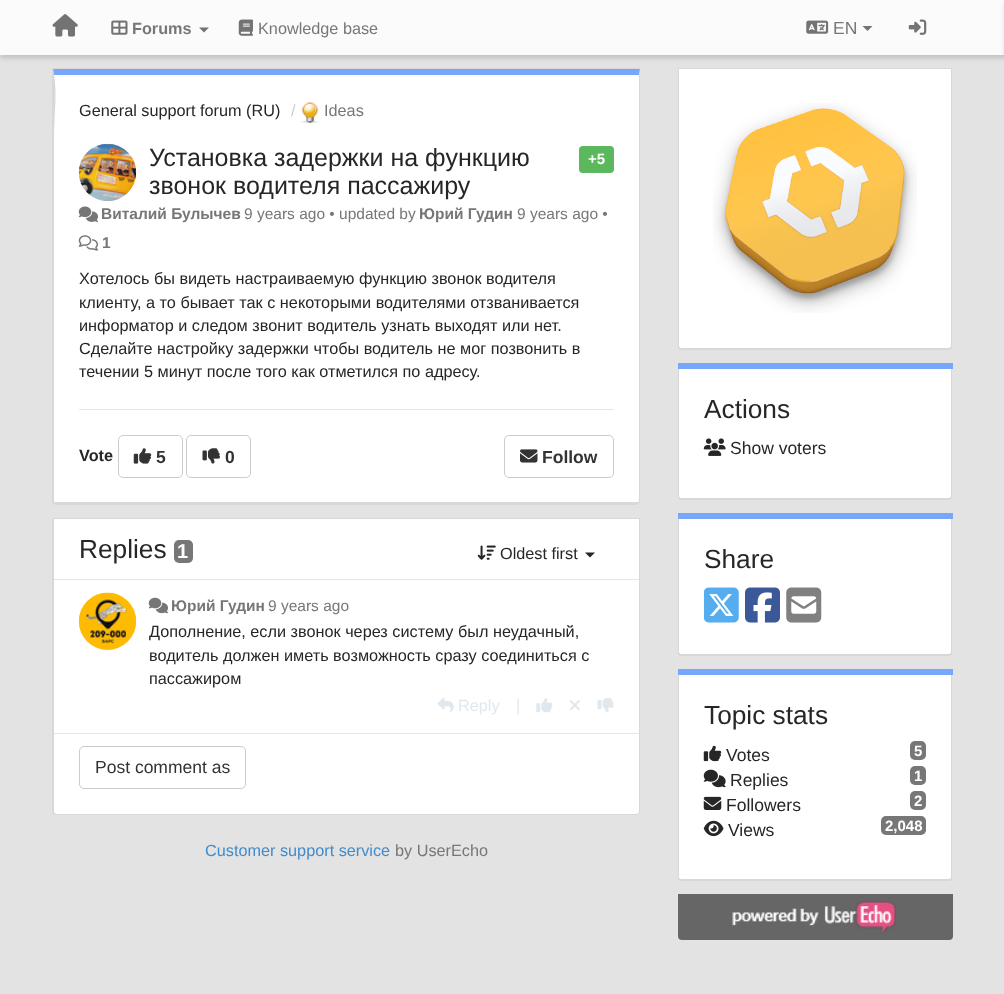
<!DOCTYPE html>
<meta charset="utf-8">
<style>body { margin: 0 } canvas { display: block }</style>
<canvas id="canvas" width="1004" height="994"></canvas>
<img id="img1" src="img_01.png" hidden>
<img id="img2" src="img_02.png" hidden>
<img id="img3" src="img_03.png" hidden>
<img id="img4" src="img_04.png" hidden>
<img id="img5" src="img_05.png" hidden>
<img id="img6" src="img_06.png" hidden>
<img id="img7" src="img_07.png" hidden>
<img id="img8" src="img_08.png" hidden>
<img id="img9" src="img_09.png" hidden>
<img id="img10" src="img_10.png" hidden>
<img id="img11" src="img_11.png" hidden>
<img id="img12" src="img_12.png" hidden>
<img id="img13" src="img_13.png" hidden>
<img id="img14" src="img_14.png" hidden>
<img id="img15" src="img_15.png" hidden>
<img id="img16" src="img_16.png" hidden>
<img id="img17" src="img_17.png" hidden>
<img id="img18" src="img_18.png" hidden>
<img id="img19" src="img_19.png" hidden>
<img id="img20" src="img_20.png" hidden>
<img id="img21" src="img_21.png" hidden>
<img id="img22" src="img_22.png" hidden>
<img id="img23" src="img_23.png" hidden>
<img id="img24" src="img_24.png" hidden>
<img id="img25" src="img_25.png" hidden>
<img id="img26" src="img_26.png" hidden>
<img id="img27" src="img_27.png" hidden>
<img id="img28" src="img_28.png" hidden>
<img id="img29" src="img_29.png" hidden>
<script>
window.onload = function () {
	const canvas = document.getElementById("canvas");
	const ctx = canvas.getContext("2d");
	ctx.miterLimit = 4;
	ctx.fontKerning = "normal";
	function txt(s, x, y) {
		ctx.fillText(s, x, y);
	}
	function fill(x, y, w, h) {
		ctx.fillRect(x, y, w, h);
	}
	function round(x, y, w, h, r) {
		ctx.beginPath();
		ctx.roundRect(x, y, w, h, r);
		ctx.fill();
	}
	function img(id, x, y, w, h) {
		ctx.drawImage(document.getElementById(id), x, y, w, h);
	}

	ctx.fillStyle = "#E3E3E3";
	fill(0, 0, 1004, 994);
	ctx.fillStyle = "rgba(0, 0, 0, 0.15)";
	ctx.filter = "blur(2.5px)";
	ctx.beginPath();
	ctx.rect(0, 3, 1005, 55);
	ctx.fill();
	ctx.filter = "none";
	ctx.fillStyle = "#FBFBFB";
	fill(0, 0, 1004, 55);
	img("img1", 52, 14, 26, 23);
	img("img2", 111, 20, 17, 15);
	ctx.fillStyle = "#737373";
	ctx.beginPath();
	ctx.moveTo(199, 27.5);
	ctx.lineTo(209, 27.5);
	ctx.lineTo(204, 32.5);
	ctx.closePath();
	ctx.fill();
	img("img3", 238, 19, 15, 17);
	img("img4", 806, 20, 23, 14);
	ctx.beginPath();
	ctx.moveTo(862.5, 26);
	ctx.lineTo(872.5, 26);
	ctx.lineTo(867.5, 31);
	ctx.closePath();
	ctx.fill();
	img("img5", 908, 19, 19, 16);
	ctx.fillStyle = "rgba(0, 0, 0, 0.15)";
	ctx.filter = "blur(2.5px)";
	ctx.beginPath();
	ctx.rect(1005, 3, 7, 55);
	ctx.fill();
	ctx.filter = "none";
	ctx.fillStyle = "#D8D8D8";
	fill(53, 68, 587, 1);
	ctx.fillStyle = "#FFFFFF";
	ctx.beginPath();
	ctx.moveTo(54, 75);
	ctx.lineTo(639, 75);
	ctx.lineTo(639, 501);
	ctx.bezierCurveTo(639, 502, 638, 502, 636, 502);
	ctx.lineTo(56, 502);
	ctx.bezierCurveTo(55, 502, 54, 502, 54, 501);
	ctx.closePath();
	ctx.fill();
	ctx.fillStyle = "#76A7FA";
	ctx.beginPath();
	ctx.moveTo(54, 75);
	ctx.lineTo(639, 75);
	ctx.lineTo(640, 69);
	ctx.lineTo(53, 69);
	ctx.lineTo(54, 76);
	ctx.closePath();
	ctx.fill();
	ctx.fillStyle = "#D8D8D8";
	ctx.beginPath();
	ctx.moveTo(640, 501);
	ctx.lineTo(640, 69);
	ctx.lineTo(639, 75);
	ctx.lineTo(639, 501);
	ctx.lineTo(638, 502);
	ctx.lineTo(639, 503);
	ctx.closePath();
	ctx.fill();
	ctx.beginPath();
	ctx.moveTo(56, 505);
	ctx.lineTo(637, 505);
	ctx.lineTo(639, 503);
	ctx.lineTo(638, 502);
	ctx.lineTo(56, 502);
	ctx.lineTo(54, 502);
	ctx.lineTo(53, 504);
	ctx.closePath();
	ctx.fill();
	ctx.beginPath();
	ctx.moveTo(52, 69);
	ctx.lineTo(53, 69);
	ctx.bezierCurveTo(58, 96, 54, 105, 54, 147);
	ctx.lineTo(54, 502);
	ctx.lineTo(53, 504);
	ctx.lineTo(52, 503);
	ctx.closePath();
	ctx.fill();
	img("img6", 301, 102, 18, 21);
	img("img7", 78, 143, 59, 59);
	ctx.fillStyle = "#5CB85C";
	round(579, 146, 35, 27, 4);
	img("img8", 78, 206, 20, 16);
	img("img9", 78, 235, 20, 16);
	ctx.fillStyle = "#E5E5E5";
	fill(79, 409, 535, 1);
	ctx.beginPath();
	ctx.roundRect(118.5, 435.5, 64, 42, 4.5);
	ctx.strokeStyle = "#CCCCCC";
	ctx.stroke();
	img("img10", 133, 448, 19, 16);
	ctx.beginPath();
	ctx.roundRect(186.5, 435.5, 64, 42, 4.5);
	ctx.stroke();
	img("img11", 202, 448, 18, 16);
	ctx.beginPath();
	ctx.roundRect(504.5, 435.5, 109, 42, 4.5);
	ctx.stroke();
	img("img12", 520, 449, 18, 14);
	ctx.fillStyle = "#D8D8D8";
	fill(53, 518, 587, 1);
	ctx.fillStyle = "#FFFFFF";
	ctx.beginPath();
	ctx.roundRect(54, 519, 585, 295, [0, 0, 2.5, 2.5]);
	ctx.fill();
	ctx.fillStyle = "#D8D8D8";
	ctx.beginPath();
	ctx.moveTo(52, 519);
	ctx.lineTo(640, 519);
	ctx.lineTo(640, 811);
	ctx.bezierCurveTo(640, 813, 638, 815, 636, 815);
	ctx.lineTo(56, 815);
	ctx.bezierCurveTo(54, 815, 52, 813, 52, 811);
	ctx.closePath();
	ctx.moveTo(54, 519);
	ctx.lineTo(639, 519);
	ctx.lineTo(639, 811);
	ctx.bezierCurveTo(639, 813, 638, 814, 636, 814);
	ctx.lineTo(56, 814);
	ctx.bezierCurveTo(55, 814, 54, 813, 54, 811);
	ctx.closePath();
	ctx.fill("evenodd");
	ctx.fillStyle = "#777777";
	round(174, 540, 19, 23, 5);
	img("img13", 477, 545, 19, 15);
	ctx.fillStyle = "#262626";
	ctx.beginPath();
	ctx.moveTo(585, 552.5);
	ctx.lineTo(595, 552.5);
	ctx.lineTo(590, 557.5);
	ctx.closePath();
	ctx.fill();
	ctx.fillStyle = "#E1E8ED";
	fill(54, 579, 585, 1);
	fill(54, 733, 585, 1);
	img("img14", 78, 592, 59, 58);
	img("img15", 148, 597, 20, 17);
	img("img16", 437, 698, 17, 15);
	img("img17", 536, 698, 17, 15);
	img("img18", 569, 700, 11, 11);
	img("img19", 597, 698, 17, 15);
	ctx.beginPath();
	ctx.roundRect(79.5, 746.5, 166, 42, 4.5);
	ctx.stroke();
	ctx.fillStyle = "#D8D8D8";
	fill(678, 68, 275, 1);
	ctx.fillStyle = "#FFFFFF";
	ctx.beginPath();
	ctx.moveTo(679, 69);
	ctx.lineTo(951, 69);
	ctx.lineTo(951, 346);
	ctx.bezierCurveTo(951, 347, 950, 348, 949, 348);
	ctx.lineTo(681, 348);
	ctx.bezierCurveTo(680, 348, 679, 347, 679, 346);
	ctx.closePath();
	ctx.fill();
	ctx.fillStyle = "#D8D8D8";
	ctx.beginPath();
	ctx.moveTo(678, 69);
	ctx.lineTo(952, 69);
	ctx.lineTo(952, 346);
	ctx.bezierCurveTo(952, 348, 951, 350, 949, 350);
	ctx.lineTo(681, 350);
	ctx.bezierCurveTo(679, 350, 678, 348, 678, 346);
	ctx.closePath();
	ctx.moveTo(679, 69);
	ctx.lineTo(951, 69);
	ctx.lineTo(951, 346);
	ctx.bezierCurveTo(951, 347, 950, 348, 949, 348);
	ctx.lineTo(681, 348);
	ctx.bezierCurveTo(680, 348, 679, 347, 679, 346);
	ctx.closePath();
	ctx.fill("evenodd");
	img("img20", 713, 103, 204, 210);
	ctx.fillStyle = "#76A7FA";
	fill(678, 363, 275, 6);
	ctx.fillStyle = "#FFFFFF";
	ctx.beginPath();
	ctx.moveTo(679, 369);
	ctx.lineTo(951, 369);
	ctx.lineTo(951, 496);
	ctx.bezierCurveTo(951, 497, 950, 498, 949, 498);
	ctx.lineTo(681, 498);
	ctx.bezierCurveTo(680, 498, 679, 497, 679, 496);
	ctx.closePath();
	ctx.fill();
	ctx.fillStyle = "#D8D8D8";
	ctx.beginPath();
	ctx.moveTo(678, 369);
	ctx.lineTo(952, 369);
	ctx.lineTo(952, 496);
	ctx.bezierCurveTo(952, 498, 951, 500, 949, 500);
	ctx.lineTo(681, 500);
	ctx.bezierCurveTo(679, 500, 678, 498, 678, 496);
	ctx.closePath();
	ctx.moveTo(679, 369);
	ctx.lineTo(951, 369);
	ctx.lineTo(951, 496);
	ctx.bezierCurveTo(951, 497, 950, 498, 949, 498);
	ctx.lineTo(681, 498);
	ctx.bezierCurveTo(680, 498, 679, 497, 679, 496);
	ctx.closePath();
	ctx.fill("evenodd");
	img("img21", 703, 438, 23, 18);
	ctx.fillStyle = "#76A7FA";
	fill(678, 513, 275, 6);
	ctx.fillStyle = "#FFFFFF";
	ctx.beginPath();
	ctx.moveTo(679, 519);
	ctx.lineTo(951, 519);
	ctx.lineTo(951, 652);
	ctx.bezierCurveTo(951, 653, 950, 654, 949, 654);
	ctx.lineTo(681, 654);
	ctx.bezierCurveTo(680, 654, 679, 653, 679, 652);
	ctx.closePath();
	ctx.fill();
	ctx.fillStyle = "#D8D8D8";
	ctx.beginPath();
	ctx.moveTo(678, 519);
	ctx.lineTo(952, 519);
	ctx.lineTo(952, 652);
	ctx.bezierCurveTo(952, 655, 951, 656, 949, 656);
	ctx.lineTo(681, 656);
	ctx.bezierCurveTo(679, 656, 678, 655, 678, 652);
	ctx.closePath();
	ctx.moveTo(679, 519);
	ctx.lineTo(951, 519);
	ctx.lineTo(951, 652);
	ctx.bezierCurveTo(951, 653, 950, 654, 949, 654);
	ctx.lineTo(681, 654);
	ctx.bezierCurveTo(680, 654, 679, 653, 679, 652);
	ctx.closePath();
	ctx.fill("evenodd");
	img("img22", 704, 587, 35, 36);
	img("img23", 745, 587, 35, 36);
	img("img24", 786, 587, 36, 36);
	ctx.fillStyle = "#76A7FA";
	fill(678, 669, 275, 6);
	ctx.fillStyle = "#FFFFFF";
	ctx.beginPath();
	ctx.moveTo(679, 675);
	ctx.lineTo(951, 675);
	ctx.lineTo(951, 878);
	ctx.bezierCurveTo(951, 878, 950, 879, 949, 879);
	ctx.lineTo(681, 879);
	ctx.bezierCurveTo(680, 879, 679, 878, 679, 878);
	ctx.closePath();
	ctx.fill();
	ctx.fillStyle = "#D8D8D8";
	ctx.beginPath();
	ctx.moveTo(678, 675);
	ctx.lineTo(952, 675);
	ctx.lineTo(952, 878);
	ctx.bezierCurveTo(952, 880, 951, 881, 949, 881);
	ctx.lineTo(681, 881);
	ctx.bezierCurveTo(679, 881, 678, 880, 678, 878);
	ctx.closePath();
	ctx.moveTo(679, 675);
	ctx.lineTo(951, 675);
	ctx.lineTo(951, 878);
	ctx.bezierCurveTo(951, 878, 950, 879, 949, 879);
	ctx.lineTo(681, 879);
	ctx.bezierCurveTo(680, 879, 679, 878, 679, 878);
	ctx.closePath();
	ctx.fill("evenodd");
	img("img25", 703, 745, 19, 17);
	ctx.fillStyle = "#777777";
	round(910, 741, 16, 19, 5);
	img("img26", 703, 769, 23, 19);
	round(910, 766, 16, 19, 5);
	img("img27", 703, 796, 19, 14);
	round(910, 791, 16, 19, 5);
	img("img28", 703, 820, 21, 17);
	round(881, 816, 45, 19, 5);
	ctx.fillStyle = "#666666";
	ctx.beginPath();
	ctx.roundRect(678, 894, 275, 46, [0, 0, 4, 4]);
	ctx.fill();
	img("img29", 732, 901, 164, 32);
	ctx.font = "bold 16.25px Liberation Sans";
	ctx.fillStyle = "#777777";
	txt("Forums", 132, 34);
	ctx.font = "16.25px Liberation Sans";
	txt("Knowledge base", 258, 34);
	ctx.font = "17.5px Liberation Sans";
	txt("EN", 833, 34);
	ctx.font = "16.25px Liberation Sans";
	ctx.fillStyle = "#262626";
	txt("General support forum (RU)", 79, 116);
	ctx.fillStyle = "#CCCCCC";
	txt("/", 291, 116);
	ctx.fillStyle = "#777777";
	txt("Ideas", 324, 116);
	ctx.font = "25px Liberation Sans";
	ctx.fillStyle = "#262626";
	txt("Установка задержки на функцию", 149, 166);
	txt("звонок водителя пассажиру", 149, 194);
	ctx.font = "bold 15px Liberation Sans";
	ctx.fillStyle = "#FFFFFF";
	txt("+5", 588, 164);
	ctx.font = "bold 15.5px Liberation Sans";
	ctx.fillStyle = "#777777";
	txt("Виталий Булычев", 101, 219);
	ctx.font = "15.5px Liberation Sans";
	txt("9 years ago • updated by", 244, 219);
	ctx.font = "bold 15.5px Liberation Sans";
	txt("Юрий Гудин", 419, 219);
	ctx.font = "15.5px Liberation Sans";
	txt("9 years ago •", 517, 219);
	ctx.font = "bold 15.5px Liberation Sans";
	txt("1", 102, 248);
	ctx.font = "16.25px Liberation Sans";
	ctx.fillStyle = "#262626";
	txt("Хотелось бы видеть настраиваемую функцию звонок водителя", 79, 284);
	txt("клиенту, а то бывает так с некоторыми водителями отзванивается", 79, 308);
	txt("информатор и следом звонит водитель узнать выходят или нет.", 79, 331);
	txt("Сделайте настройку задержки чтобы водитель не мог позвонить в", 79, 354);
	txt("течении 5 минут после того как отметился по адресу.", 79, 377);
	ctx.font = "bold 16.25px Liberation Sans";
	txt("Vote", 79, 461);
	ctx.font = "bold 17.5px Liberation Sans";
	ctx.fillStyle = "#333333";
	txt("5", 156, 463);
	txt("0", 225, 463);
	txt("Follow", 542, 463);
	ctx.font = "26.25px Liberation Sans";
	ctx.fillStyle = "#262626";
	txt("Replies", 79, 558);
	ctx.font = "bold 20px Liberation Sans";
	ctx.fillStyle = "#FFFFFF";
	txt("1", 177, 558);
	ctx.font = "16.25px Liberation Sans";
	ctx.fillStyle = "#262626";
	txt("Oldest first", 500, 559);
	ctx.font = "bold 15.5px Liberation Sans";
	ctx.fillStyle = "#777777";
	txt("Юрий Гудин", 171, 611);
	ctx.font = "15.5px Liberation Sans";
	txt("9 years ago", 268, 611);
	ctx.save();
	ctx.beginPath();
	ctx.rect(149, 621, 465, 70);
	ctx.clip();
	ctx.font = "16.25px Liberation Sans";
	ctx.fillStyle = "#262626";
	txt("Дополнение, если звонок через систему был неудачный,", 149, 637);
	ctx.restore();
	ctx.font = "16.25px Liberation Sans";
	ctx.fillStyle = "#262626";
	txt("водитель должен иметь возможность сразу соединиться с", 149, 661);
	txt("пассажиром", 149, 684);
	ctx.fillStyle = "#E1E8ED";
	txt("Reply", 458, 711);
	txt("|", 516, 711);
	ctx.font = "17.5px Liberation Sans";
	ctx.fillStyle = "#333333";
	txt("Post comment as", 95, 773);
	ctx.font = "16.25px Liberation Sans";
	ctx.fillStyle = "#428BCA";
	txt("Customer support service", 205, 856);
	ctx.fillStyle = "#777777";
	txt("by UserEcho", 395, 856);
	ctx.font = "26.25px Liberation Sans";
	ctx.fillStyle = "#262626";
	txt("Actions", 704, 418);
	ctx.font = "17.5px Liberation Sans";
	txt("Show voters", 730, 454);
	ctx.font = "26.25px Liberation Sans";
	txt("Share", 704, 568);
	txt("Topic stats", 704, 724);
	ctx.font = "17.5px Liberation Sans";
	txt("Votes", 726, 761);
	ctx.font = "bold 15px Liberation Sans";
	ctx.fillStyle = "#FFFFFF";
	txt("5", 914, 756);
	ctx.font = "17.5px Liberation Sans";
	ctx.fillStyle = "#262626";
	txt("Replies", 730, 786);
	ctx.font = "bold 15px Liberation Sans";
	ctx.fillStyle = "#FFFFFF";
	txt("1", 914, 781);
	ctx.font = "17.5px Liberation Sans";
	ctx.fillStyle = "#262626";
	txt("Followers", 726, 811);
	ctx.font = "bold 15px Liberation Sans";
	ctx.fillStyle = "#FFFFFF";
	txt("2", 914, 806);
	ctx.font = "17.5px Liberation Sans";
	ctx.fillStyle = "#262626";
	txt("Views", 728, 836);
	ctx.font = "bold 15px Liberation Sans";
	ctx.fillStyle = "#FFFFFF";
	txt("2,048", 885, 831);
};
</script>
